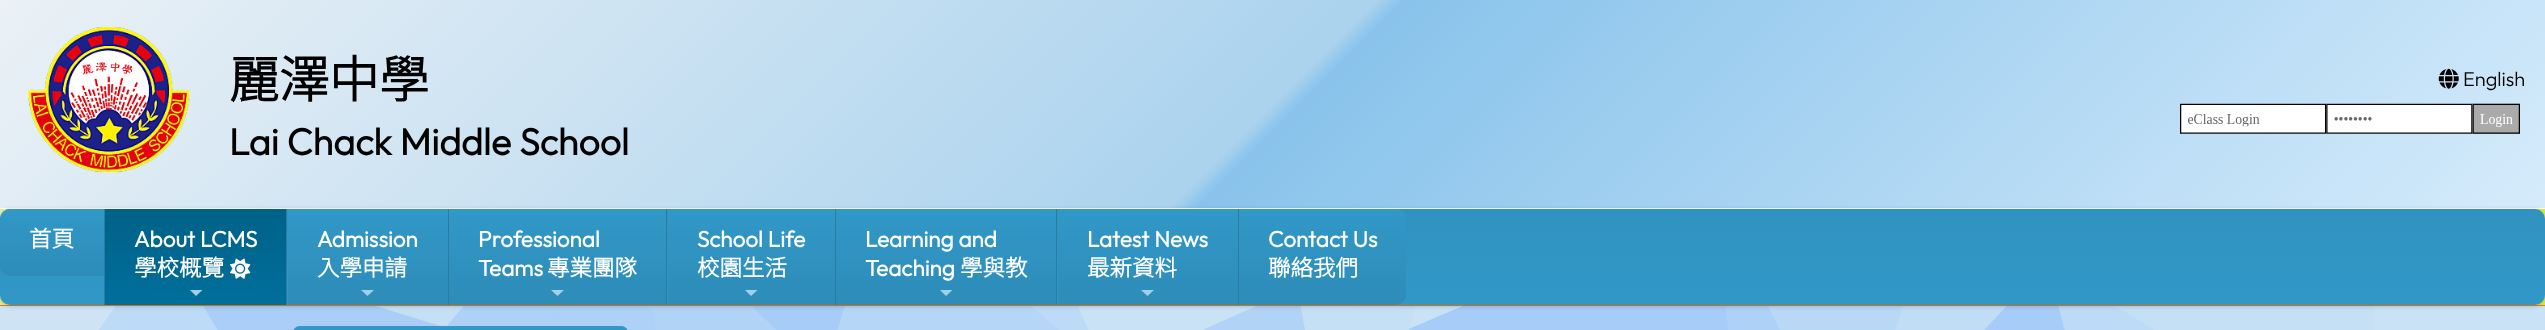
<!DOCTYPE html>
<meta charset="utf-8">
<style>body { margin: 0 } canvas { display: block }</style>
<canvas id="canvas" width="2545" height="330"></canvas>
<img id="img1" src="img_01.png" hidden>
<img id="img2" src="img_02.png" hidden>
<img id="img3" src="img_03.png" hidden>
<img id="img4" src="img_04.png" hidden>
<img id="img5" src="img_05.png" hidden>
<script>
window.onload = function () {
	const canvas = document.getElementById("canvas");
	const ctx = canvas.getContext("2d");
	ctx.miterLimit = 4;
	ctx.fontKerning = "normal";
	function txt(s, x, y) {
		ctx.fillText(s, x, y);
	}
	function fill(x, y, w, h) {
		ctx.fillRect(x, y, w, h);
	}
	function round(x, y, w, h, r) {
		ctx.beginPath();
		ctx.roundRect(x, y, w, h, r);
		ctx.fill();
	}
	function img(id, x, y, w, h) {
		ctx.drawImage(document.getElementById(id), x, y, w, h);
	}
	let gradient;

	ctx.fillStyle = "#FFFFFF";
	fill(0, 0, 2545, 330);
	img("img1", 0, 306, 2545, 24);
	gradient = ctx.createLinearGradient(584, -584, 1961, 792);
	gradient.addColorStop(0, "#EBF1F6");
	gradient.addColorStop(0.5, "#ABD3EE");
	gradient.addColorStop(0.51, "#89C3EB");
	gradient.addColorStop(1, "#D5EBFB");
	ctx.fillStyle = gradient;
	fill(0, 0, 2545, 208);
	img("img2", 28, 26, 162, 147);
	img("img3", 2438, 68, 21, 21);
	img("img4", 2180, 103, 340, 31);
	gradient = ctx.createLinearGradient(612, -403, 1933, 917);
	gradient.addColorStop(0, "#E6F0A3");
	gradient.addColorStop(0.5, "#D2E638");
	gradient.addColorStop(0.51, "#C3D825");
	gradient.addColorStop(1, "#DBF043");
	ctx.fillStyle = gradient;
	fill(0, 209, 2545, 96);
	ctx.fillStyle = "#F57B0A";
	fill(0, 305, 2545, 1);
	ctx.fillStyle = "rgba(0, 0, 0, 0.2)";
	ctx.filter = "blur(2.5px)";
	ctx.beginPath();
	ctx.roundRect(0, 210, 2545, 96, 10);
	ctx.fill();
	ctx.filter = "none";
	gradient = ctx.createLinearGradient(1273, 209, 1273, 305);
	gradient.addColorStop(0, "#3092C0");
	gradient.addColorStop(1, "#3198C7");
	ctx.fillStyle = gradient;
	round(0, 209, 2545, 96, 10);
	gradient = ctx.createLinearGradient(52, 209, 52, 276);
	gradient.addColorStop(0, "#3198C7");
	gradient.addColorStop(1, "#2E8CB8");
	ctx.fillStyle = gradient;
	ctx.beginPath();
	ctx.roundRect(0, 209, 104, 67, [10, 0, 0, 10]);
	ctx.fill();
	ctx.fillStyle = "#297CA2";
	fill(104, 209, 1, 96);
	gradient = ctx.createLinearGradient(196, 209, 196, 305);
	gradient.addColorStop(0, "#006187");
	gradient.addColorStop(1, "#006F9C");
	ctx.fillStyle = gradient;
	fill(105, 209, 181, 96);
	img("img5", 230, 258, 21, 21);
	ctx.fillStyle = "#A1D1E8";
	ctx.beginPath();
	ctx.moveTo(190, 290);
	ctx.lineTo(202.5, 290);
	ctx.lineTo(196, 296);
	ctx.closePath();
	ctx.fill();
	ctx.fillStyle = "#297CA2";
	fill(286, 209, 1, 96);
	gradient = ctx.createLinearGradient(368, 209, 368, 305);
	gradient.addColorStop(0, "#3198C7");
	gradient.addColorStop(1, "#2E8CB8");
	ctx.fillStyle = gradient;
	fill(288, 209, 160, 96);
	ctx.fillStyle = "#A1D1E8";
	ctx.beginPath();
	ctx.moveTo(361, 290);
	ctx.lineTo(374, 290);
	ctx.lineTo(367.5, 296);
	ctx.closePath();
	ctx.fill();
	ctx.fillStyle = "#297CA2";
	fill(448, 209, 1, 96);
	gradient = ctx.createLinearGradient(558, 209, 558, 305);
	gradient.addColorStop(0, "#3198C7");
	gradient.addColorStop(1, "#2E8CB8");
	ctx.fillStyle = gradient;
	fill(449, 209, 217, 96);
	ctx.fillStyle = "#A1D1E8";
	ctx.beginPath();
	ctx.moveTo(551, 290);
	ctx.lineTo(564, 290);
	ctx.lineTo(557.5, 296);
	ctx.closePath();
	ctx.fill();
	ctx.fillStyle = "#297CA2";
	fill(666, 209, 1, 96);
	gradient = ctx.createLinearGradient(751, 209, 751, 305);
	gradient.addColorStop(0, "#3198C7");
	gradient.addColorStop(1, "#2E8CB8");
	ctx.fillStyle = gradient;
	fill(668, 209, 167, 96);
	ctx.fillStyle = "#A1D1E8";
	ctx.beginPath();
	ctx.moveTo(745, 290);
	ctx.lineTo(757.5, 290);
	ctx.lineTo(751, 296);
	ctx.closePath();
	ctx.fill();
	ctx.fillStyle = "#297CA2";
	fill(835, 209, 1, 96);
	gradient = ctx.createLinearGradient(946, 209, 946, 305);
	gradient.addColorStop(0, "#3198C7");
	gradient.addColorStop(1, "#2E8CB8");
	ctx.fillStyle = gradient;
	fill(836, 209, 220, 96);
	ctx.fillStyle = "#A1D1E8";
	ctx.beginPath();
	ctx.moveTo(940, 290);
	ctx.lineTo(952.5, 290);
	ctx.lineTo(946, 296);
	ctx.closePath();
	ctx.fill();
	ctx.fillStyle = "#297CA2";
	fill(1056, 209, 1, 96);
	gradient = ctx.createLinearGradient(1148, 209, 1148, 305);
	gradient.addColorStop(0, "#3198C7");
	gradient.addColorStop(1, "#2E8CB8");
	ctx.fillStyle = gradient;
	fill(1058, 209, 180, 96);
	ctx.fillStyle = "#A1D1E8";
	ctx.beginPath();
	ctx.moveTo(1141, 290);
	ctx.lineTo(1154, 290);
	ctx.lineTo(1147.5, 296);
	ctx.closePath();
	ctx.fill();
	ctx.fillStyle = "#297CA2";
	fill(1238, 209, 1, 96);
	gradient = ctx.createLinearGradient(1323, 209, 1323, 305);
	gradient.addColorStop(0, "#3198C7");
	gradient.addColorStop(1, "#2E8CB8");
	ctx.fillStyle = gradient;
	ctx.beginPath();
	ctx.roundRect(1239, 209, 167, 96, [0, 10, 10, 0]);
	ctx.fill();
	gradient = ctx.createLinearGradient(460, 326, 460, 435);
	gradient.addColorStop(0, "#3198C7");
	gradient.addColorStop(1, "#2E8CB8");
	ctx.fillStyle = gradient;
	round(293, 326, 335, 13, 9);
	ctx.font = "bold 50px Noto Sans HK";
	ctx.fillStyle = "#000000";
	txt("麗澤中學", 229, 98);
	ctx.font = "bold 37.5px Outfit";
	txt("Lai Chack Middle School", 229, 155);
	ctx.font = "100 20px Outfit";
	txt("English", 2463, 86);
	ctx.font = "bold 22.5px Noto Sans HK";
	ctx.fillStyle = "#FFFFFF";
	txt("首頁", 29, 247);
	ctx.font = "bold 22.5px Outfit";
	txt("About LCMS", 134, 247);
	ctx.font = "bold 22.5px Noto Sans HK";
	txt("學校概覽", 134, 276);
	ctx.font = "bold 22.5px Outfit";
	txt("Admission", 317, 247);
	ctx.font = "bold 22.5px Noto Sans HK";
	txt("入學申請", 317, 276);
	ctx.font = "bold 22.5px Outfit";
	txt("Professional", 478, 247);
	txt("Teams", 478, 276);
	ctx.font = "bold 22.5px Noto Sans HK";
	txt("專業團隊", 547, 276);
	ctx.font = "bold 22.5px Outfit";
	txt("School Life", 697, 247);
	ctx.font = "bold 22.5px Noto Sans HK";
	txt("校園生活", 697, 276);
	ctx.font = "bold 22.5px Outfit";
	txt("Learning and", 865, 247);
	txt("Teaching", 865, 276);
	ctx.font = "bold 22.5px Noto Sans HK";
	txt("學與教", 960, 276);
	ctx.font = "bold 22.5px Outfit";
	txt("Latest News", 1087, 247);
	ctx.font = "bold 22.5px Noto Sans HK";
	txt("最新資料", 1087, 276);
	ctx.font = "bold 22.5px Outfit";
	txt("Contact Us", 1268, 247);
	ctx.font = "bold 22.5px Noto Sans HK";
	txt("聯絡我們", 1268, 276);
};
</script>
